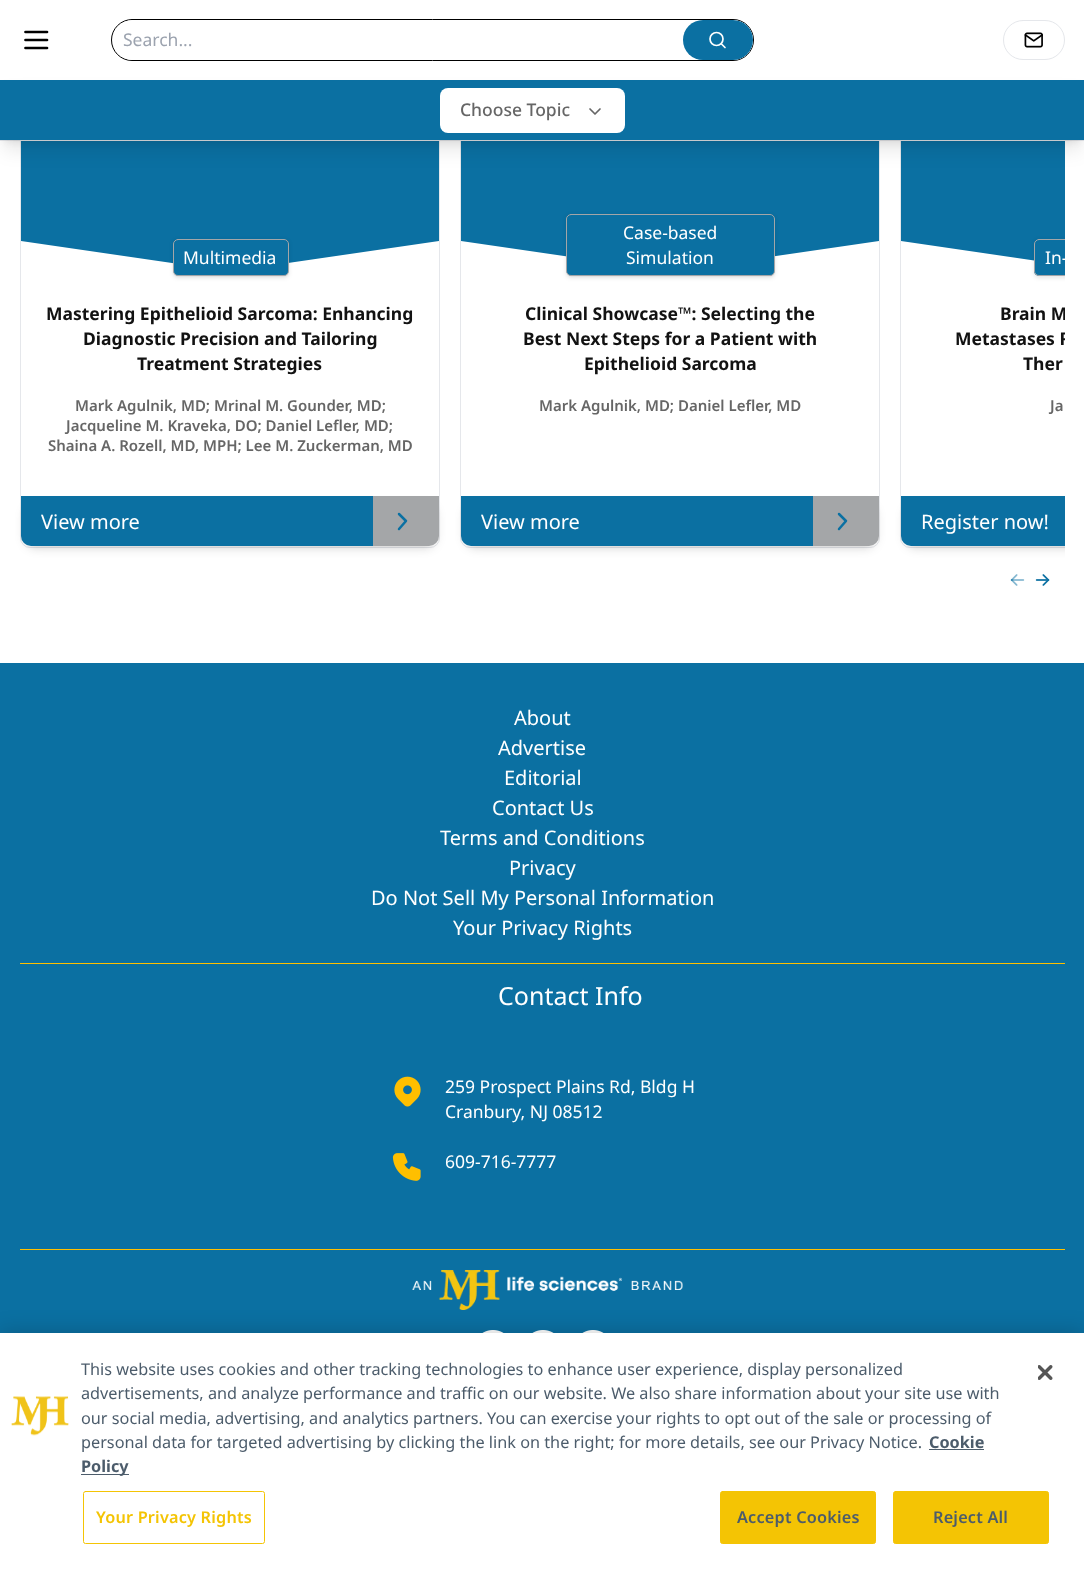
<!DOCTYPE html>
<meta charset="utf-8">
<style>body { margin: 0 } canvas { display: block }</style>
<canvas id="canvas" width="1084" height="1569"></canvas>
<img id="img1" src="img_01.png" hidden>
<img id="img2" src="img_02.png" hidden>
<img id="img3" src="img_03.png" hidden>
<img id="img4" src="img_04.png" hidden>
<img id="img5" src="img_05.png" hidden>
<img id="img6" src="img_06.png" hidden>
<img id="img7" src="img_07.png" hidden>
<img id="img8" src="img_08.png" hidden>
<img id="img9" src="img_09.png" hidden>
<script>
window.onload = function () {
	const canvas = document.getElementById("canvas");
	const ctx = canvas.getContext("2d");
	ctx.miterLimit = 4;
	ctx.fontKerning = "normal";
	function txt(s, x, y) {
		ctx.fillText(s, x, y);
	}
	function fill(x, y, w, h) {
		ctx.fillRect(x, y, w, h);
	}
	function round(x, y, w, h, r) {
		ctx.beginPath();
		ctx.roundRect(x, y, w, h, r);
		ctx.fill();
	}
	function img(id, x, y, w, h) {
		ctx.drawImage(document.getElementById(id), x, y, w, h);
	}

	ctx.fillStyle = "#FFFFFF";
	fill(0, 0, 1084, 1569);
	ctx.beginPath();
	ctx.roundRect(20.5, 70.5, 419, 477, 9.5);
	ctx.strokeStyle = "#E5E7EB";
	ctx.stroke();
	ctx.fillStyle = "#0B70A2";
	ctx.beginPath();
	ctx.moveTo(21, 79);
	ctx.bezierCurveTo(22, 75, 25, 72, 28, 71);
	ctx.lineTo(432, 71);
	ctx.bezierCurveTo(435, 72, 438, 75, 439, 79);
	ctx.lineTo(439, 241);
	ctx.lineTo(233, 271);
	ctx.lineTo(227, 271);
	ctx.lineTo(21, 241);
	ctx.closePath();
	ctx.fill();
	ctx.beginPath();
	ctx.roundRect(460.5, 70.5, 419, 477, 9.5);
	ctx.stroke();
	ctx.beginPath();
	ctx.moveTo(461, 79);
	ctx.bezierCurveTo(462, 75, 465, 72, 468, 71);
	ctx.lineTo(872, 71);
	ctx.bezierCurveTo(875, 72, 878, 75, 879, 79);
	ctx.lineTo(879, 241);
	ctx.lineTo(673, 271);
	ctx.lineTo(667, 271);
	ctx.lineTo(461, 241);
	ctx.closePath();
	ctx.fill();
	ctx.save();
	ctx.beginPath();
	ctx.rect(20, 70, 1045, 498);
	ctx.clip();
	ctx.beginPath();
	ctx.roundRect(900.5, 70.5, 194, 477, 9.5);
	ctx.stroke();
	ctx.beginPath();
	ctx.moveTo(901, 79);
	ctx.bezierCurveTo(902, 75, 905, 72, 908, 71);
	ctx.lineTo(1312, 71);
	ctx.bezierCurveTo(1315, 72, 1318, 75, 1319, 79);
	ctx.lineTo(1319, 241);
	ctx.lineTo(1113, 271);
	ctx.lineTo(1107, 271);
	ctx.lineTo(901, 241);
	ctx.closePath();
	ctx.fill();
	ctx.restore();
	ctx.fillStyle = "#FFFFFF";
	fill(20, 70, 1045, 10);
	ctx.fillStyle = "#E5E7EB";
	fill(0, 140, 1084, 1);
	ctx.beginPath();
	ctx.moveTo(25.5, 32);
	ctx.lineTo(47, 32);
	ctx.moveTo(25.5, 40);
	ctx.lineTo(47, 40);
	ctx.moveTo(25.5, 48);
	ctx.lineTo(47, 48);
	ctx.strokeStyle = "#000000";
	ctx.lineWidth = 2.7;
	ctx.lineCap = "round";
	ctx.lineJoin = "round";
	ctx.stroke();
	ctx.beginPath();
	ctx.roundRect(111.5, 19.5, 642, 41, 20.5);
	ctx.lineWidth = 1;
	ctx.lineJoin = "miter";
	ctx.stroke();
	ctx.fillStyle = "#FFFFFF";
	round(113, 20, 640, 40, 20);
	ctx.fillStyle = "#0B70A2";
	round(683, 20, 70, 40, 20);
	ctx.beginPath();
	ctx.arc(716.5, 39, 6.5, 0, Math.PI * 2);
	ctx.strokeStyle = "#FFFFFF";
	ctx.lineWidth = 1.7;
	ctx.stroke();
	ctx.beginPath();
	ctx.moveTo(725, 47.5);
	ctx.lineTo(721.5, 44);
	ctx.lineJoin = "round";
	ctx.stroke();
	ctx.beginPath();
	ctx.roundRect(1003.5, 20.5, 61, 39, 19.5);
	ctx.strokeStyle = "#E5E7EB";
	ctx.lineWidth = 1;
	ctx.lineJoin = "miter";
	ctx.stroke();
	img("img1", 1024, 32, 19, 16);
	ctx.fillStyle = "rgba(0, 0, 0, 0.1)";
	ctx.filter = "blur(4px)";
	ctx.beginPath();
	ctx.rect(5, 90, 1075, 50);
	ctx.fill();
	ctx.filter = "none";
	ctx.filter = "blur(9.5px)";
	ctx.beginPath();
	ctx.rect(4, 96, 1077, 53);
	ctx.fill();
	ctx.filter = "none";
	ctx.fillStyle = "#0B70A2";
	fill(0, 80, 1084, 60);
	ctx.fillStyle = "#FFFFFF";
	round(440, 88, 185, 45, 8);
	ctx.beginPath();
	ctx.moveTo(590, 109);
	ctx.lineTo(595, 114);
	ctx.lineTo(600, 109);
	ctx.strokeStyle = "#666666";
	ctx.lineWidth = 1.7;
	ctx.lineJoin = "round";
	ctx.stroke();
	ctx.fillStyle = "rgba(0, 0, 0, 0.1)";
	ctx.filter = "blur(1px)";
	ctx.beginPath();
	ctx.roundRect(174, 241, 114, 35, 4);
	ctx.fill();
	ctx.filter = "none";
	ctx.filter = "blur(2px)";
	ctx.beginPath();
	ctx.roundRect(173, 240, 116, 38, 5);
	ctx.fill();
	ctx.filter = "none";
	ctx.fillStyle = "#0B70A2";
	ctx.beginPath();
	ctx.roundRect(173.5, 239.5, 115, 36, 4.5);
	ctx.fill();
	ctx.strokeStyle = "#A4A6A8";
	ctx.lineWidth = 1;
	ctx.lineJoin = "miter";
	ctx.stroke();
	ctx.fillStyle = "rgba(0, 0, 0, 0.1)";
	ctx.filter = "blur(2.5px)";
	ctx.beginPath();
	ctx.roundRect(24, 501, 412, 45, 13);
	ctx.fill();
	ctx.filter = "none";
	ctx.filter = "blur(4px)";
	ctx.beginPath();
	ctx.roundRect(23, 503, 415, 47, 14);
	ctx.fill();
	ctx.filter = "none";
	ctx.fillStyle = "#0B70A2";
	ctx.beginPath();
	ctx.roundRect(21, 496, 418, 50, [0, 0, 15, 10]);
	ctx.fill();
	ctx.fillStyle = "#A4A6A8";
	ctx.beginPath();
	ctx.roundRect(373, 496, 66, 50, [0, 0, 10, 0]);
	ctx.fill();
	ctx.beginPath();
	ctx.moveTo(399, 514);
	ctx.lineTo(406, 521);
	ctx.lineTo(399, 529);
	ctx.strokeStyle = "#0B70A2";
	ctx.lineWidth = 2.5;
	ctx.lineJoin = "round";
	ctx.stroke();
	ctx.fillStyle = "rgba(0, 0, 0, 0.1)";
	ctx.filter = "blur(1px)";
	ctx.beginPath();
	ctx.roundRect(568, 216, 206, 60, 4);
	ctx.fill();
	ctx.filter = "none";
	ctx.filter = "blur(2px)";
	ctx.beginPath();
	ctx.roundRect(566, 215, 209, 63, 5);
	ctx.fill();
	ctx.filter = "none";
	ctx.fillStyle = "#0B70A2";
	ctx.beginPath();
	ctx.roundRect(566.5, 214.5, 208, 61, 4.5);
	ctx.fill();
	ctx.strokeStyle = "#A4A6A8";
	ctx.lineWidth = 1;
	ctx.lineJoin = "miter";
	ctx.stroke();
	ctx.fillStyle = "rgba(0, 0, 0, 0.1)";
	ctx.filter = "blur(2.5px)";
	ctx.beginPath();
	ctx.roundRect(464, 501, 412, 45, 13);
	ctx.fill();
	ctx.filter = "none";
	ctx.filter = "blur(4px)";
	ctx.beginPath();
	ctx.roundRect(463, 503, 415, 47, 14);
	ctx.fill();
	ctx.filter = "none";
	ctx.fillStyle = "#0B70A2";
	ctx.beginPath();
	ctx.roundRect(461, 496, 418, 50, [0, 0, 15, 10]);
	ctx.fill();
	ctx.fillStyle = "#A4A6A8";
	ctx.beginPath();
	ctx.roundRect(813, 496, 66, 50, [0, 0, 10, 0]);
	ctx.fill();
	ctx.beginPath();
	ctx.moveTo(839, 514);
	ctx.lineTo(846, 521);
	ctx.lineTo(839, 529);
	ctx.strokeStyle = "#0B70A2";
	ctx.lineWidth = 2.5;
	ctx.lineJoin = "round";
	ctx.stroke();
	ctx.save();
	ctx.beginPath();
	ctx.rect(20, 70, 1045, 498);
	ctx.clip();
	ctx.fillStyle = "rgba(0, 0, 0, 0.1)";
	ctx.filter = "blur(2px)";
	ctx.beginPath();
	ctx.roundRect(1034, 240, 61, 38, 5);
	ctx.fill();
	ctx.filter = "none";
	ctx.restore();
	ctx.fillStyle = "#0B70A2";
	ctx.beginPath();
	ctx.roundRect(1034, 239, 31, 37, [5, 0, 0, 5]);
	ctx.fill();
	ctx.save();
	ctx.beginPath();
	ctx.rect(20, 70, 1045, 498);
	ctx.clip();
	ctx.beginPath();
	ctx.roundRect(1034.5, 239.5, 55, 36, 4.5);
	ctx.strokeStyle = "#A4A6A8";
	ctx.lineWidth = 1;
	ctx.lineJoin = "miter";
	ctx.stroke();
	ctx.restore();
	ctx.save();
	ctx.beginPath();
	ctx.rect(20, 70, 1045, 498);
	ctx.clip();
	ctx.fillStyle = "rgba(0, 0, 0, 0.1)";
	ctx.filter = "blur(2.5px)";
	ctx.beginPath();
	ctx.roundRect(904, 501, 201, 45, 13);
	ctx.fill();
	ctx.filter = "none";
	ctx.filter = "blur(4px)";
	ctx.beginPath();
	ctx.roundRect(903, 503, 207, 47, 14);
	ctx.fill();
	ctx.filter = "none";
	ctx.restore();
	ctx.beginPath();
	ctx.roundRect(901, 496, 164, 50, [0, 0, 0, 10]);
	ctx.fill();
	img("img2", 1010, 574, 15, 12);
	img("img3", 1035, 574, 15, 12);
	fill(0, 663, 1084, 670);
	ctx.fillStyle = "#FFBF00";
	fill(20, 963, 1045, 1);
	fill(20, 1249, 1045, 1);
	img("img4", 394, 1076, 27, 31);
	img("img5", 392, 1153, 29, 28);
	img("img6", 412, 1270, 271, 40);
	img("img7", 482, 1330, 22, 3);
	img("img7", 532, 1330, 22, 3);
	img("img7", 582, 1330, 22, 3);
	ctx.fillStyle = "rgba(0, 0, 0, 0.2)";
	ctx.filter = "blur(11px)";
	ctx.beginPath();
	ctx.rect(0, 1333, 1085, 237);
	ctx.fill();
	ctx.filter = "none";
	ctx.fillStyle = "#FFFFFF";
	fill(0, 1333, 1084, 236);
	img("img8", 11, 1396, 58, 40);
	ctx.fillStyle = "#4C5C6B";
	fill(929, 1449, 55, 1);
	fill(81, 1474, 48, 1);
	ctx.beginPath();
	ctx.roundRect(83.5, 1491.5, 181, 52, 2);
	ctx.strokeStyle = "#F4C404";
	ctx.lineWidth = 1;
	ctx.lineJoin = "miter";
	ctx.stroke();
	ctx.fillStyle = "#F4C404";
	ctx.beginPath();
	ctx.roundRect(720.5, 1491.5, 155, 52, 2);
	ctx.fill();
	ctx.stroke();
	ctx.beginPath();
	ctx.roundRect(893.5, 1491.5, 155, 52, 2);
	ctx.fill();
	ctx.stroke();
	img("img9", 1038, 1365, 15, 15);
	ctx.font = "17.5px Noto Sans";
	ctx.fillStyle = "#9CA3AF";
	txt("Search...", 123, 46);
	ctx.font = "500 17.5px Noto Sans";
	ctx.fillStyle = "#666666";
	txt("Choose Topic", 460, 116);
	ctx.font = "17.5px Noto Sans";
	ctx.fillStyle = "#FFFFFF";
	txt("Multimedia", 183, 264);
	ctx.font = "bold 17.5px Noto Sans";
	ctx.fillStyle = "#121212";
	txt("Mastering Epithelioid Sarcoma: Enhancing", 46, 320);
	txt("Diagnostic Precision and Tailoring", 83, 345);
	txt("Treatment Strategies", 137, 370);
	ctx.font = "600 15px Noto Sans";
	ctx.fillStyle = "#666666";
	txt("Mark Agulnik, MD; Mrinal M. Gounder, MD;", 75, 411);
	txt("Jacqueline M. Kraveka, DO; Daniel Lefler, MD;", 66, 431);
	txt("Shaina A. Rozell, MD, MPH; Lee M. Zuckerman, MD", 48, 451);
	ctx.font = "20px Noto Sans";
	ctx.fillStyle = "#FFFFFF";
	txt("View more", 41, 529);
	ctx.font = "17.5px Noto Sans";
	txt("Case-based", 623, 239);
	txt("Simulation", 626, 264);
	ctx.font = "bold 17.5px Noto Sans";
	ctx.fillStyle = "#121212";
	txt("Clinical Showcase™: Selecting the", 525, 320);
	txt("Best Next Steps for a Patient with", 523, 345);
	txt("Epithelioid Sarcoma", 584, 370);
	ctx.font = "600 15px Noto Sans";
	ctx.fillStyle = "#666666";
	txt("Mark Agulnik, MD; Daniel Lefler, MD", 539, 411);
	ctx.font = "20px Noto Sans";
	ctx.fillStyle = "#FFFFFF";
	txt("View more", 481, 529);
	ctx.save();
	ctx.beginPath();
	ctx.rect(20, 70, 1045, 498);
	ctx.clip();
	ctx.font = "17.5px Noto Sans";
	txt("In-", 1045, 264);
	ctx.restore();
	ctx.save();
	ctx.beginPath();
	ctx.rect(921, 301, 144, 75);
	ctx.clip();
	ctx.font = "bold 17.5px Noto Sans";
	ctx.fillStyle = "#121212";
	txt("Brain M", 1000, 320);
	txt("Metastases R", 955, 345);
	ctx.restore();
	ctx.font = "bold 17.5px Noto Sans";
	ctx.fillStyle = "#121212";
	txt("Ther", 1023, 370);
	ctx.font = "600 15px Noto Sans";
	ctx.fillStyle = "#666666";
	txt("Ja", 1050, 411);
	ctx.font = "20px Noto Sans";
	ctx.fillStyle = "#FFFFFF";
	txt("Register now!", 921, 529);
	txt("About", 514, 725);
	txt("Advertise", 498, 755);
	txt("Editorial", 504, 785);
	txt("Contact Us", 492, 815);
	txt("Terms and Conditions", 440, 845);
	txt("Privacy", 509, 875);
	txt("Do Not Sell My Personal Information", 371, 905);
	txt("Your Privacy Rights", 453, 935);
	ctx.font = "25px Noto Sans";
	txt("Contact Info", 498, 1005);
	ctx.font = "17.5px Noto Sans";
	txt("259 Prospect Plains Rd, Bldg H", 445, 1093);
	txt("Cranbury, NJ 08512", 445, 1118);
	txt("609-716-7777", 445, 1168);
	ctx.font = "16.25px Noto Sans";
	ctx.fillStyle = "#4C5C6B";
	txt("This website uses cookies and other tracking technologies to enhance user experience, display personalized", 81, 1375);
	txt("advertisements, and analyze performance and traffic on our website. We also share information about your site use with", 81, 1399);
	txt("our social media, advertising, and analytics partners. You can exercise your rights to opt out of the sale or processing of", 81, 1424);
	txt("personal data for targeted advertising by clicking the link on the right; for more details, see our Privacy Notice.", 81, 1448);
	ctx.font = "bold 16.25px Noto Sans";
	txt("Cookie", 929, 1448);
	txt("Policy", 81, 1472);
	ctx.letterSpacing = "0.2px";
	ctx.font = "600 16.25px Noto Sans";
	ctx.fillStyle = "#F4C404";
	txt("Your Privacy Rights", 96, 1523);
	ctx.fillStyle = "#4C5C6B";
	txt("Accept Cookies", 737, 1523);
	txt("Reject All", 933, 1523);
};
</script>
